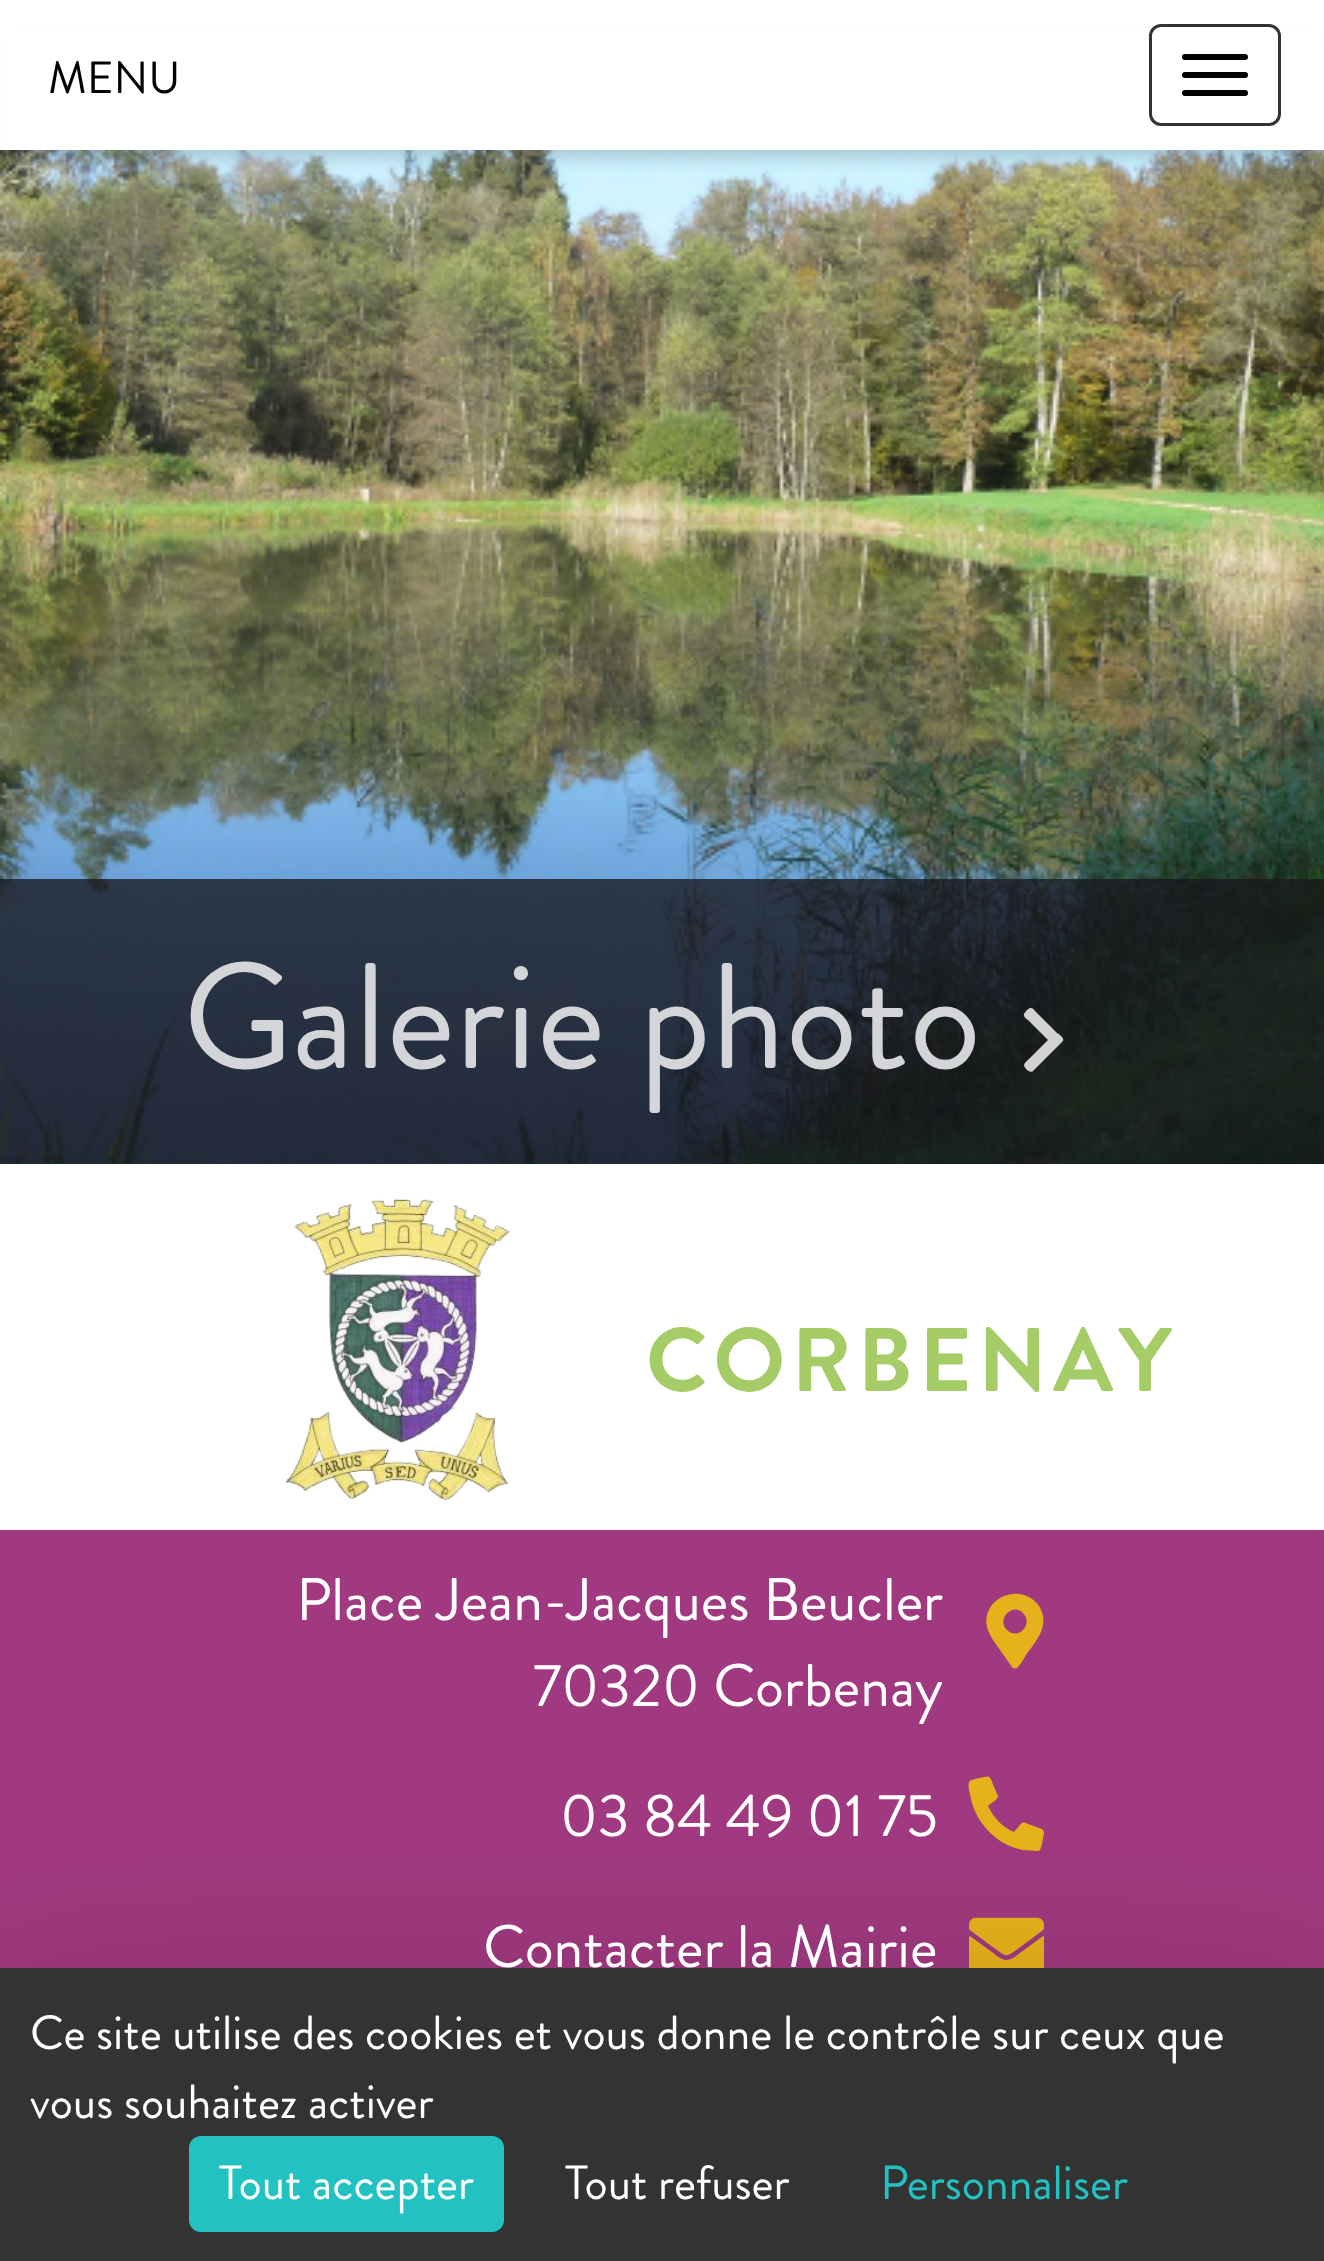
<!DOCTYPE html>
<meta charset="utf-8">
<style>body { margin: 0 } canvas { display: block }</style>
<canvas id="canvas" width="1324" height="2261"></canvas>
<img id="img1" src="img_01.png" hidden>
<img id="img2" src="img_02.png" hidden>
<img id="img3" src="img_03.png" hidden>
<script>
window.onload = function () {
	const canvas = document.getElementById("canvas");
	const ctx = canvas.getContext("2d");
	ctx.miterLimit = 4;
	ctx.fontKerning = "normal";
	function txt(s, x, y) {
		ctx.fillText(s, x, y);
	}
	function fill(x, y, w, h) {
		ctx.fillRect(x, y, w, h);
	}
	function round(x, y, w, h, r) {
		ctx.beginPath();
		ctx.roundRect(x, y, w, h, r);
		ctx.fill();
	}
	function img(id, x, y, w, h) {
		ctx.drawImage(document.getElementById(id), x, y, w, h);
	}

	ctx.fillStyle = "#FFFFFF";
	fill(0, 0, 1324, 2261);
	img("img1", 0, 150, 1324, 1014);
	ctx.fillStyle = "rgba(0, 0, 0, 0.2)";
	ctx.filter = "blur(9px)";
	ctx.beginPath();
	ctx.rect(18, 42, 1290, 114);
	ctx.fill();
	ctx.filter = "none";
	ctx.fillStyle = "#FFFFFF";
	fill(3, 27, 1320, 123);
	ctx.beginPath();
	ctx.roundRect(1150.5, 25.5, 129, 99, 10.5);
	ctx.strokeStyle = "#333333";
	ctx.lineWidth = 3;
	ctx.stroke();
	ctx.fillStyle = "#000000";
	round(1182, 54, 66, 6, 3);
	round(1182, 72, 66, 6, 3);
	round(1182, 90, 66, 6, 3);
	ctx.fillStyle = "rgba(25, 24, 30, 0.77)";
	fill(0, 879, 1324, 285);
	ctx.fillStyle = "rgba(255, 255, 255, 0.8)";
	ctx.beginPath();
	ctx.moveTo(1062, 1042);
	ctx.lineTo(1033, 1071);
	ctx.bezierCurveTo(1031, 1073, 1028, 1071, 1026, 1069);
	ctx.bezierCurveTo(1022, 1064, 1025, 1063, 1029, 1059);
	ctx.lineTo(1048, 1040);
	ctx.lineTo(1029, 1021);
	ctx.bezierCurveTo(1027, 1019, 1023, 1017, 1024, 1014);
	ctx.bezierCurveTo(1025, 1012, 1026, 1011, 1027, 1010);
	ctx.bezierCurveTo(1032, 1005, 1034, 1010, 1038, 1014);
	ctx.lineTo(1057, 1033);
	ctx.bezierCurveTo(1059, 1034, 1066, 1039, 1062, 1042);
	ctx.closePath();
	ctx.fill();
	img("img2", 285, 1198, 225, 302);
	ctx.fillStyle = "#A0397F";
	fill(0, 1530, 1324, 438);
	ctx.fillStyle = "#E6B21B";
	ctx.beginPath();
	ctx.moveTo(1012, 1667);
	ctx.lineTo(1000, 1650);
	ctx.bezierCurveTo(995, 1643, 989, 1635, 987, 1627);
	ctx.bezierCurveTo(981, 1597, 1022, 1581, 1039, 1606);
	ctx.bezierCurveTo(1051, 1625, 1036, 1641, 1026, 1655);
	ctx.bezierCurveTo(1024, 1658, 1019, 1667, 1017, 1668);
	ctx.bezierCurveTo(1015, 1669, 1013, 1668, 1012, 1667);
	ctx.closePath();
	ctx.moveTo(1007, 1630);
	ctx.bezierCurveTo(1018, 1641, 1034, 1624, 1023, 1613);
	ctx.bezierCurveTo(1013, 1602, 996, 1619, 1007, 1630);
	ctx.closePath();
	ctx.fill();
	ctx.beginPath();
	ctx.moveTo(1042, 1829);
	ctx.bezierCurveTo(1043, 1830, 1044, 1831, 1044, 1833);
	ctx.lineTo(1042, 1844);
	ctx.bezierCurveTo(1041, 1846, 1041, 1852, 1037, 1851);
	ctx.lineTo(1023, 1850);
	ctx.bezierCurveTo(1000, 1846, 979, 1827, 972, 1803);
	ctx.lineTo(969, 1790);
	ctx.bezierCurveTo(968, 1779, 969, 1781, 979, 1778);
	ctx.bezierCurveTo(991, 1776, 989, 1774, 994, 1787);
	ctx.bezierCurveTo(1000, 1800, 1000, 1796, 988, 1806);
	ctx.bezierCurveTo(994, 1818, 1002, 1827, 1014, 1832);
	ctx.lineTo(1020, 1825);
	ctx.bezierCurveTo(1023, 1821, 1024, 1822, 1028, 1824);
	ctx.closePath();
	ctx.fill();
	img("img3", 969, 1917, 75, 51);
	ctx.fillStyle = "rgba(0, 0, 0, 0.25)";
	ctx.filter = "blur(90px)";
	ctx.beginPath();
	ctx.rect(0, 2028, 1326, 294);
	ctx.fill();
	ctx.filter = "none";
	ctx.fillStyle = "#333333";
	fill(0, 1968, 1324, 293);
	ctx.fillStyle = "#23C2C2";
	round(189, 2136, 315, 96, 12);
	ctx.font = "45px Brandon Grotesque";
	ctx.fillStyle = "#000000";
	txt("MENU", 48, 93);
	ctx.font = "150px Brandon Grotesque";
	ctx.fillStyle = "#D3D5D8";
	txt("Galerie photo", 183, 1068);
	ctx.letterSpacing = "6px";
	ctx.font = "bold 90px Brandon Grotesque";
	ctx.fillStyle = "#A5CC66";
	txt("CORBENAY", 646, 1391);
	ctx.letterSpacing = "0px";
	ctx.font = "60px Brandon Grotesque";
	ctx.fillStyle = "#FFFFFF";
	txt("Place Jean-Jacques Beucler", 296, 1620);
	txt("70320 Corbenay", 533, 1706);
	txt("03 84 49 01 75", 560, 1836);
	txt("Contacter la Mairie", 483, 1967);
	ctx.font = "48px Brandon Grotesque";
	txt("Ce site utilise des cookies et vous donne le contrôle sur ceux que", 30, 2049);
	txt("vous souhaitez activer", 30, 2118);
	txt("Tout accepter", 219, 2199);
	txt("Tout refuser", 565, 2199);
	ctx.fillStyle = "#23C2C2";
	txt("Personnaliser", 880, 2199);
};
</script>
